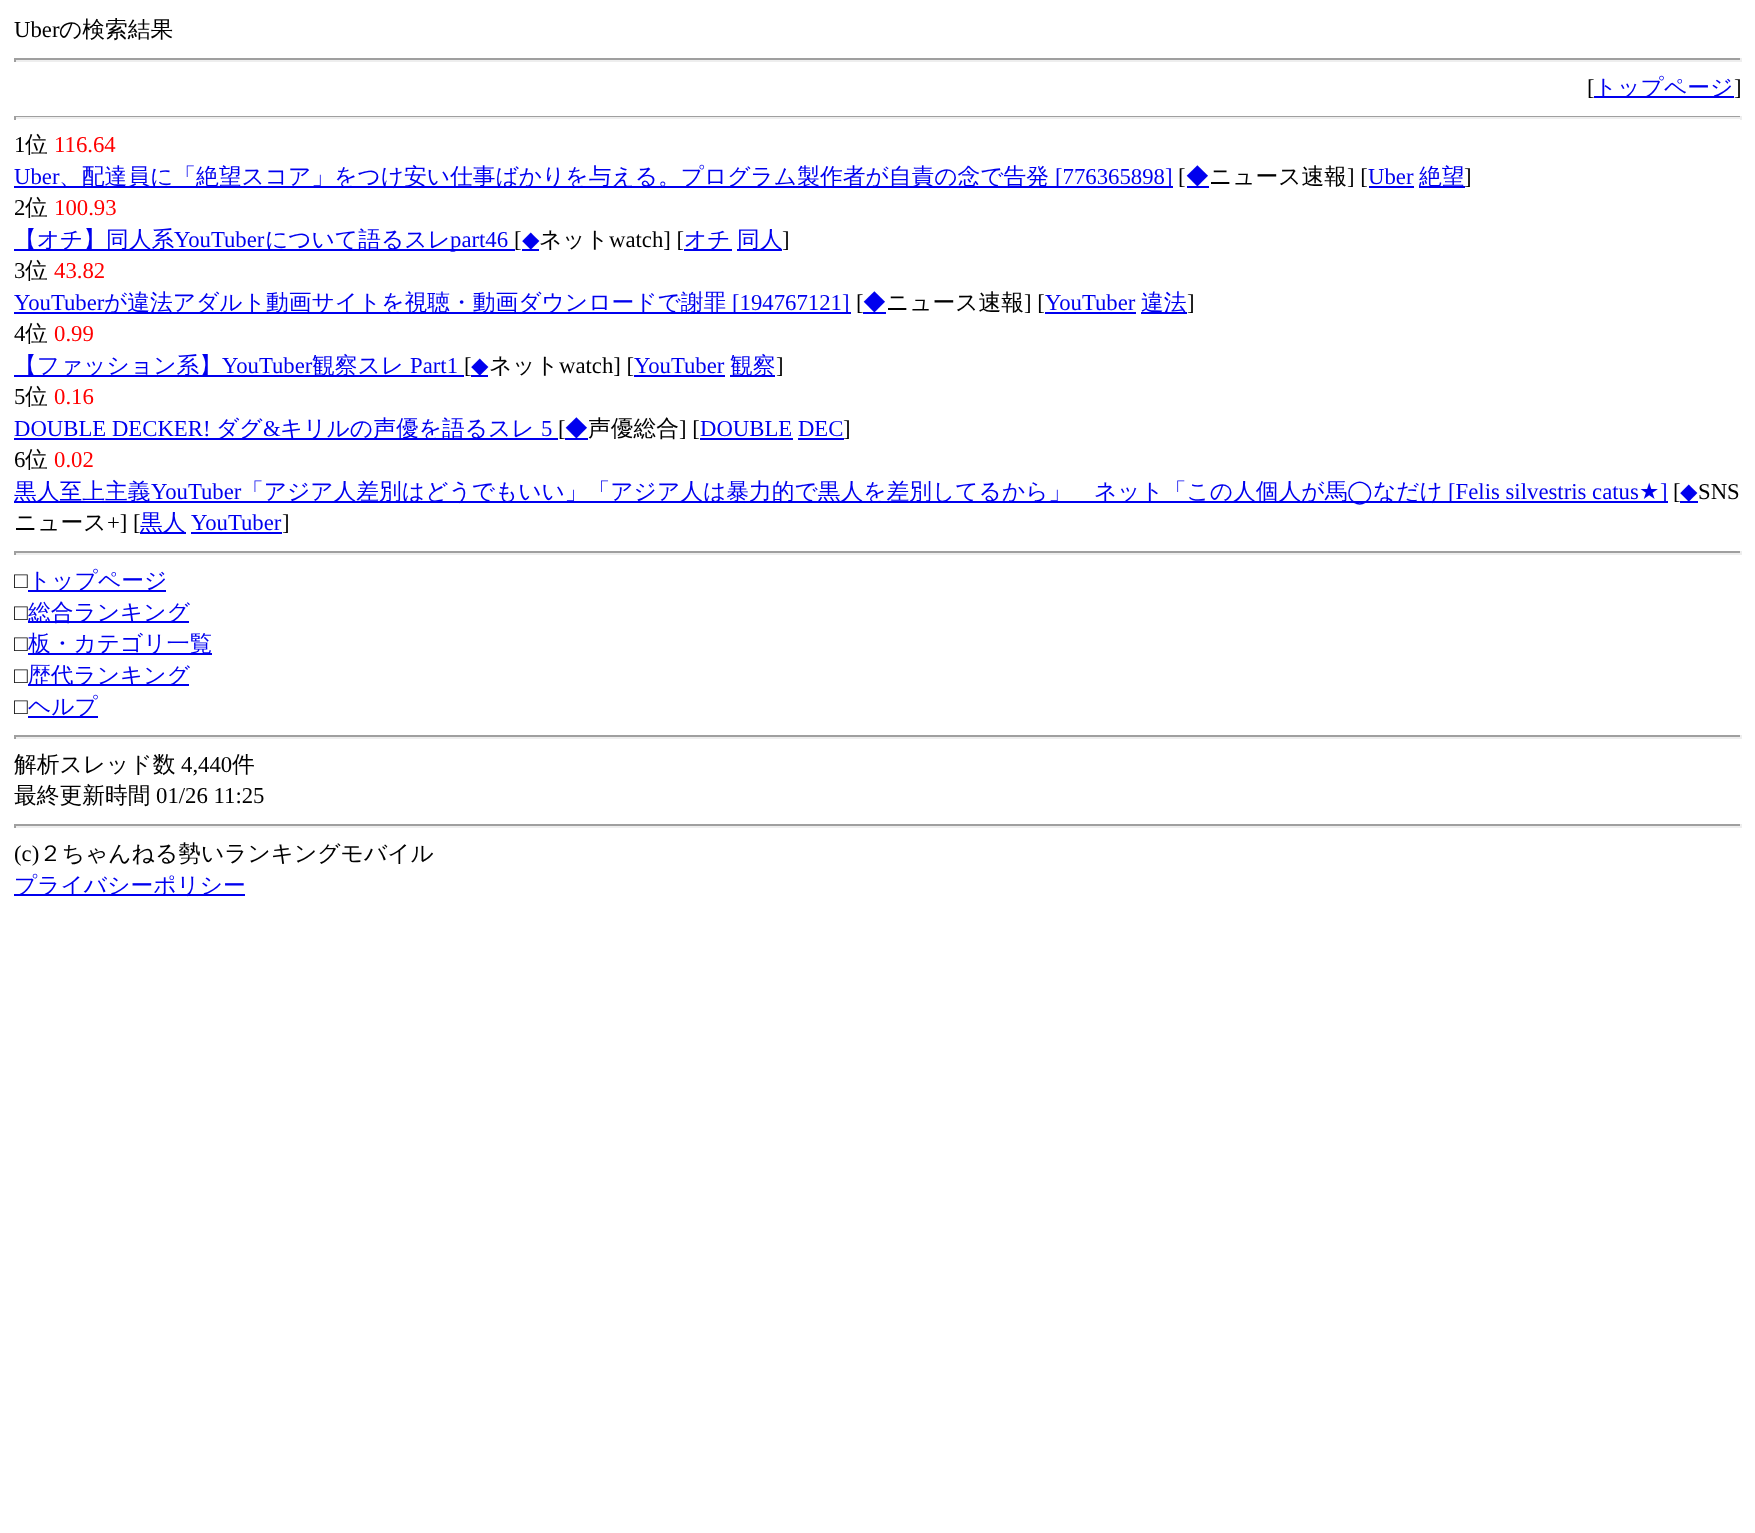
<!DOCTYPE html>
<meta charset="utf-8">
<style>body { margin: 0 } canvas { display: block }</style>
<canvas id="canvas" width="1755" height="1533"></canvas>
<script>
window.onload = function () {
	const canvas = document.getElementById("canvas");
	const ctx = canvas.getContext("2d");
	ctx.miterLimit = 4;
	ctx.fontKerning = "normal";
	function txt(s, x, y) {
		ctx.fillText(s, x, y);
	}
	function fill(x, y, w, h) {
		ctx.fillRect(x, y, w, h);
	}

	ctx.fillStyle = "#FFFFFF";
	fill(0, 0, 1755, 1533);
	ctx.fillStyle = "#9F9F9F";
	fill(14, 58, 1727, 2);
	ctx.fillStyle = "#EEEEEE";
	fill(1740, 58, 2, 4);
	fill(14, 60, 1727, 2);
	ctx.fillStyle = "#9F9F9F";
	fill(14, 58, 2, 4);
	ctx.fillStyle = "#0000EE";
	fill(1594, 96, 140, 2);
	ctx.fillStyle = "#9F9F9F";
	fill(14, 116, 1727, 1);
	ctx.fillStyle = "#EEEEEE";
	fill(1740, 116, 2, 4);
	fill(14, 117, 1727, 2);
	ctx.fillStyle = "#9F9F9F";
	fill(14, 116, 2, 4);
	ctx.fillStyle = "#0000EE";
	fill(14, 186, 1159, 2);
	fill(1187, 186, 22, 2);
	fill(1369, 186, 45, 2);
	fill(1419, 186, 46, 2);
	fill(14, 249, 501, 2);
	fill(522, 249, 17, 2);
	fill(684, 249, 48, 2);
	fill(737, 249, 45, 2);
	fill(14, 312, 837, 2);
	fill(863, 312, 23, 2);
	fill(1045, 312, 91, 2);
	fill(1141, 312, 46, 2);
	fill(14, 375, 450, 2);
	fill(471, 375, 17, 2);
	fill(634, 375, 91, 2);
	fill(730, 375, 45, 2);
	fill(14, 438, 544, 2);
	fill(565, 438, 23, 2);
	fill(700, 438, 93, 2);
	fill(798, 438, 46, 2);
	fill(14, 501, 1654, 2);
	fill(1680, 501, 18, 2);
	fill(140, 532, 46, 2);
	fill(191, 532, 91, 2);
	ctx.fillStyle = "#9F9F9F";
	fill(14, 551, 1727, 2);
	ctx.fillStyle = "#EEEEEE";
	fill(1740, 551, 2, 4);
	fill(14, 553, 1727, 2);
	ctx.fillStyle = "#9F9F9F";
	fill(14, 551, 2, 4);
	ctx.fillStyle = "#0000EE";
	fill(28, 590, 138, 2);
	fill(28, 621, 161, 2);
	fill(28, 653, 184, 2);
	fill(28, 684, 161, 2);
	fill(28, 716, 70, 2);
	ctx.fillStyle = "#9F9F9F";
	fill(14, 735, 1727, 2);
	ctx.fillStyle = "#EEEEEE";
	fill(1740, 735, 2, 4);
	fill(14, 737, 1727, 2);
	ctx.fillStyle = "#9F9F9F";
	fill(14, 735, 2, 4);
	fill(14, 824, 1727, 2);
	ctx.fillStyle = "#EEEEEE";
	fill(1740, 824, 2, 4);
	fill(14, 826, 1727, 2);
	ctx.fillStyle = "#9F9F9F";
	fill(14, 824, 2, 4);
	ctx.fillStyle = "#0000EE";
	fill(14, 894, 231, 2);
	ctx.font = "22.75px Liberation Serif";
	ctx.fillStyle = "#000000";
	txt("Uber", 14, 37);
	ctx.font = "500 22.75px WenQuanYi Zen Hei";
	txt("の検索結果", 59, 37);
	ctx.font = "22.75px Liberation Serif";
	txt("[", 1587, 95);
	ctx.font = "500 22.75px WenQuanYi Zen Hei";
	ctx.fillStyle = "#0000EE";
	txt("トップページ", 1594, 95);
	ctx.font = "22.75px Liberation Serif";
	ctx.fillStyle = "#000000";
	txt("]", 1734, 95);
	txt("1", 14, 152);
	ctx.font = "500 22.75px WenQuanYi Zen Hei";
	txt("位", 25, 152);
	ctx.font = "22.75px Liberation Serif";
	ctx.fillStyle = "#FF0000";
	txt("116.64", 54, 152);
	ctx.fillStyle = "#0000EE";
	txt("Uber", 14, 184);
	ctx.font = "500 22.75px WenQuanYi Zen Hei";
	txt("、配達員に「絶望スコア」をつけ安い仕事ばかりを与える。プログラム製作者が自責の念で告発", 59, 184);
	ctx.font = "22.75px Liberation Serif";
	txt("[776365898]", 1055, 184);
	ctx.fillStyle = "#000000";
	txt("[", 1178, 184);
	ctx.font = "500 22.75px WenQuanYi Zen Hei";
	ctx.fillStyle = "#0000EE";
	txt("◆", 1186, 184);
	ctx.fillStyle = "#000000";
	txt("ニュース速報", 1209, 184);
	ctx.font = "22.75px Liberation Serif";
	txt("] [", 1347, 184);
	ctx.fillStyle = "#0000EE";
	txt("Uber", 1368, 184);
	ctx.font = "500 22.75px WenQuanYi Zen Hei";
	txt("絶望", 1419, 184);
	ctx.font = "22.75px Liberation Serif";
	ctx.fillStyle = "#000000";
	txt("]", 1464, 184);
	txt("2", 14, 215);
	ctx.font = "500 22.75px WenQuanYi Zen Hei";
	txt("位", 25, 215);
	ctx.font = "22.75px Liberation Serif";
	ctx.fillStyle = "#FF0000";
	txt("100.93", 54, 215);
	ctx.font = "500 22.75px WenQuanYi Zen Hei";
	ctx.fillStyle = "#0000EE";
	txt("【オチ】同人系", 14, 247);
	ctx.font = "22.75px Liberation Serif";
	txt("YouTuber", 174, 247);
	ctx.font = "500 22.75px WenQuanYi Zen Hei";
	txt("について語るスレ", 265, 247);
	ctx.font = "22.75px Liberation Serif";
	txt("part46", 450, 247);
	ctx.fillStyle = "#000000";
	txt("[", 514, 247);
	ctx.font = "22.75px DejaVu Sans";
	ctx.fillStyle = "#0000EE";
	txt("◆", 522, 247);
	ctx.font = "500 22.75px WenQuanYi Zen Hei";
	ctx.fillStyle = "#000000";
	txt("ネット", 539, 247);
	ctx.font = "22.75px Liberation Serif";
	txt("watch] [", 609, 247);
	ctx.font = "500 22.75px WenQuanYi Zen Hei";
	ctx.fillStyle = "#0000EE";
	txt("オチ", 684, 247);
	txt("同人", 737, 247);
	ctx.font = "22.75px Liberation Serif";
	ctx.fillStyle = "#000000";
	txt("]", 782, 247);
	txt("3", 14, 278);
	ctx.font = "500 22.75px WenQuanYi Zen Hei";
	txt("位", 25, 278);
	ctx.font = "22.75px Liberation Serif";
	ctx.fillStyle = "#FF0000";
	txt("43.82", 54, 278);
	ctx.fillStyle = "#0000EE";
	txt("YouTuber", 14, 310);
	ctx.font = "500 22.75px WenQuanYi Zen Hei";
	txt("が違法アダルト動画サイトを視聴・動画ダウンロードで謝罪", 104, 310);
	ctx.font = "22.75px Liberation Serif";
	txt("[194767121]", 732, 310);
	ctx.fillStyle = "#000000";
	txt("[", 856, 310);
	ctx.font = "500 22.75px WenQuanYi Zen Hei";
	ctx.fillStyle = "#0000EE";
	txt("◆", 863, 310);
	ctx.fillStyle = "#000000";
	txt("ニュース速報", 886, 310);
	ctx.font = "22.75px Liberation Serif";
	txt("] [", 1024, 310);
	ctx.fillStyle = "#0000EE";
	txt("YouTuber", 1045, 310);
	ctx.font = "500 22.75px WenQuanYi Zen Hei";
	txt("違法", 1141, 310);
	ctx.font = "22.75px Liberation Serif";
	ctx.fillStyle = "#000000";
	txt("]", 1187, 310);
	txt("4", 14, 341);
	ctx.font = "500 22.75px WenQuanYi Zen Hei";
	txt("位", 25, 341);
	ctx.font = "22.75px Liberation Serif";
	ctx.fillStyle = "#FF0000";
	txt("0.99", 54, 341);
	ctx.font = "500 22.75px WenQuanYi Zen Hei";
	ctx.fillStyle = "#0000EE";
	txt("【ファッション系】", 14, 373);
	ctx.font = "22.75px Liberation Serif";
	txt("YouTuber", 222, 373);
	ctx.font = "500 22.75px WenQuanYi Zen Hei";
	txt("観察スレ", 312, 373);
	ctx.font = "22.75px Liberation Serif";
	txt("Part1", 410, 373);
	ctx.fillStyle = "#000000";
	txt("[", 464, 373);
	ctx.font = "22.75px DejaVu Sans";
	ctx.fillStyle = "#0000EE";
	txt("◆", 471, 373);
	ctx.font = "500 22.75px WenQuanYi Zen Hei";
	ctx.fillStyle = "#000000";
	txt("ネット", 489, 373);
	ctx.font = "22.75px Liberation Serif";
	txt("watch] [", 559, 373);
	ctx.fillStyle = "#0000EE";
	txt("YouTuber", 634, 373);
	ctx.font = "500 22.75px WenQuanYi Zen Hei";
	txt("観察", 730, 373);
	ctx.font = "22.75px Liberation Serif";
	ctx.fillStyle = "#000000";
	txt("]", 776, 373);
	txt("5", 14, 404);
	ctx.font = "500 22.75px WenQuanYi Zen Hei";
	txt("位", 25, 404);
	ctx.font = "22.75px Liberation Serif";
	ctx.fillStyle = "#FF0000";
	txt("0.16", 54, 404);
	ctx.fillStyle = "#0000EE";
	txt("DOUBLE DECKER!", 14, 436);
	ctx.font = "500 22.75px WenQuanYi Zen Hei";
	txt("ダグ", 216, 436);
	ctx.font = "22.75px Liberation Serif";
	txt("&", 263, 436);
	ctx.font = "500 22.75px WenQuanYi Zen Hei";
	txt("キリルの声優を語るスレ", 280, 436);
	ctx.font = "22.75px Liberation Serif";
	txt("5", 541, 436);
	ctx.fillStyle = "#000000";
	txt("[", 558, 436);
	ctx.font = "500 22.75px WenQuanYi Zen Hei";
	ctx.fillStyle = "#0000EE";
	txt("◆", 565, 436);
	ctx.fillStyle = "#000000";
	txt("声優総合", 588, 436);
	ctx.font = "22.75px Liberation Serif";
	txt("] [", 679, 436);
	ctx.fillStyle = "#0000EE";
	txt("DOUBLE DEC", 700, 436);
	ctx.fillStyle = "#000000";
	txt("]", 843, 436);
	txt("6", 14, 467);
	ctx.font = "500 22.75px WenQuanYi Zen Hei";
	txt("位", 25, 467);
	ctx.font = "22.75px Liberation Serif";
	ctx.fillStyle = "#FF0000";
	txt("0.02", 54, 467);
	ctx.font = "500 22.75px WenQuanYi Zen Hei";
	ctx.fillStyle = "#0000EE";
	txt("黒人至上主義", 14, 499);
	ctx.font = "22.75px Liberation Serif";
	txt("YouTuber", 151, 499);
	ctx.font = "500 22.75px WenQuanYi Zen Hei";
	txt("「アジア人差別はどうでもいい」「アジア人は暴力的で黒人を差別してるから」　ネット「この人個人が馬", 241, 499);
	ctx.font = "22.75px DejaVu Sans";
	txt("◯", 1347, 499);
	ctx.font = "500 22.75px WenQuanYi Zen Hei";
	txt("なだけ", 1373, 499);
	ctx.font = "22.75px Liberation Serif";
	txt("[Felis silvestris catus", 1448, 499);
	ctx.font = "22.75px DejaVu Sans";
	txt("★", 1639, 499);
	ctx.font = "22.75px Liberation Serif";
	txt("]", 1660, 499);
	ctx.fillStyle = "#000000";
	txt("[", 1673, 499);
	ctx.font = "22.75px DejaVu Sans";
	ctx.fillStyle = "#0000EE";
	txt("◆", 1680, 499);
	ctx.font = "22.75px Liberation Serif";
	ctx.fillStyle = "#000000";
	txt("SNS", 1698, 499);
	ctx.font = "500 22.75px WenQuanYi Zen Hei";
	txt("ニュース", 14, 530);
	ctx.font = "22.75px Liberation Serif";
	txt("+] [", 107, 530);
	ctx.font = "500 22.75px WenQuanYi Zen Hei";
	ctx.fillStyle = "#0000EE";
	txt("黒人", 140, 530);
	ctx.font = "22.75px Liberation Serif";
	txt("YouTuber", 191, 530);
	ctx.fillStyle = "#000000";
	txt("]", 282, 530);
	txt("□", 14, 588);
	ctx.font = "500 22.75px WenQuanYi Zen Hei";
	ctx.fillStyle = "#0000EE";
	txt("トップページ", 28, 588);
	ctx.font = "22.75px Liberation Serif";
	ctx.fillStyle = "#000000";
	txt("□", 14, 620);
	ctx.font = "500 22.75px WenQuanYi Zen Hei";
	ctx.fillStyle = "#0000EE";
	txt("総合ランキング", 28, 620);
	ctx.font = "22.75px Liberation Serif";
	ctx.fillStyle = "#000000";
	txt("□", 14, 651);
	ctx.font = "500 22.75px WenQuanYi Zen Hei";
	ctx.fillStyle = "#0000EE";
	txt("板・カテゴリ一覧", 28, 651);
	ctx.font = "22.75px Liberation Serif";
	ctx.fillStyle = "#000000";
	txt("□", 14, 683);
	ctx.font = "500 22.75px WenQuanYi Zen Hei";
	ctx.fillStyle = "#0000EE";
	txt("歴代ランキング", 28, 683);
	ctx.font = "22.75px Liberation Serif";
	ctx.fillStyle = "#000000";
	txt("□", 14, 714);
	ctx.font = "500 22.75px WenQuanYi Zen Hei";
	ctx.fillStyle = "#0000EE";
	txt("ヘルプ", 28, 714);
	ctx.fillStyle = "#000000";
	txt("解析スレッド数", 14, 772);
	ctx.font = "22.75px Liberation Serif";
	txt("4,440", 181, 772);
	ctx.font = "500 22.75px WenQuanYi Zen Hei";
	txt("件", 232, 772);
	txt("最終更新時間", 14, 803);
	ctx.font = "22.75px Liberation Serif";
	txt("01/26 11:25", 156, 803);
	txt("(c)", 14, 861);
	ctx.font = "500 22.75px WenQuanYi Zen Hei";
	txt("２ちゃんねる勢いランキングモバイル", 39, 861);
	ctx.fillStyle = "#0000EE";
	txt("プライバシーポリシー", 14, 893);
};
</script>
